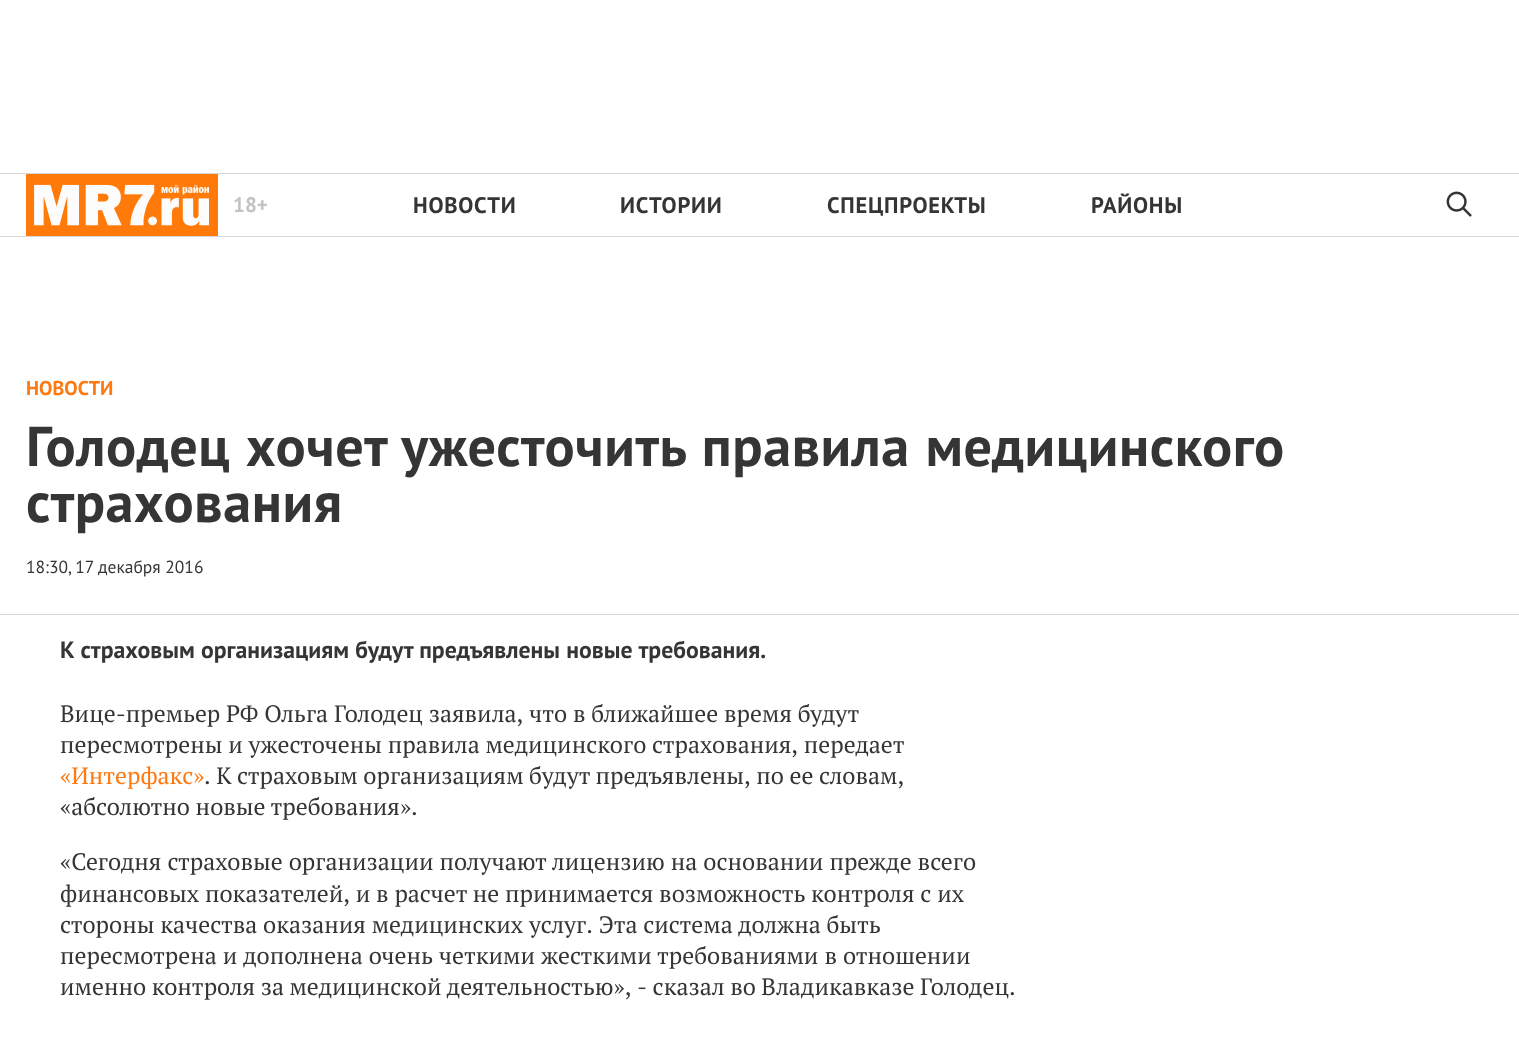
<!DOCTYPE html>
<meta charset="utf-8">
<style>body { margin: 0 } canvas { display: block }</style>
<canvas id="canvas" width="1519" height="1040"></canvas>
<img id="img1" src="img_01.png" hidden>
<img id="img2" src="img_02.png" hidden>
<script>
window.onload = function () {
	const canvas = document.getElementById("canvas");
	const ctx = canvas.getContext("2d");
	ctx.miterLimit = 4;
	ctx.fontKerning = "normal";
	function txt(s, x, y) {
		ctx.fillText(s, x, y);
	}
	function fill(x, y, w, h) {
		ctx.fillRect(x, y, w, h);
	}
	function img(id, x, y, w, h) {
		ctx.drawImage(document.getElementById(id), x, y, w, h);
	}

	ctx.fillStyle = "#FFFFFF";
	fill(0, 0, 1519, 1040);
	ctx.fillStyle = "#D7D7D7";
	fill(0, 173, 1519, 1);
	fill(0, 236, 1519, 1);
	img("img1", 26, 174, 192, 62);
	img("img2", 1446, 191, 26, 26);
	fill(0, 614, 1519, 1);
	ctx.font = "bold 21px PT Sans";
	ctx.fillStyle = "#C2C2C2";
	txt("18+", 233, 212);
	ctx.letterSpacing = "0.75px";
	ctx.font = "bold 22.5px PT Sans";
	ctx.fillStyle = "#353535";
	txt("НОВОСТИ", 413, 213);
	txt("ИСТОРИИ", 620, 213);
	txt("СПЕЦПРОЕКТЫ", 827, 213);
	txt("РАЙОНЫ", 1091, 213);
	ctx.letterSpacing = "0px";
	ctx.font = "bold 20px PT Sans";
	ctx.fillStyle = "#FF7911";
	txt("НОВОСТИ", 26, 395);
	ctx.letterSpacing = "0.55px";
	ctx.wordSpacing = "1px";
	ctx.font = "bold 56.25px PT Sans";
	ctx.fillStyle = "#353535";
	txt("Голодец хочет ужесточить правила медицинского", 26, 466);
	ctx.wordSpacing = "0px";
	txt("страхования", 26, 522);
	ctx.letterSpacing = "0px";
	ctx.font = "17.5px PT Sans";
	txt("18:30, 17 декабря 2016", 26, 573);
	ctx.wordSpacing = "0.25px";
	ctx.font = "bold 23.75px PT Sans";
	txt("К страховым организациям будут предъявлены новые требования.", 60, 658);
	ctx.wordSpacing = "0px";
	ctx.font = "23.75px PT Serif";
	txt("Вице-премьер РФ Ольга Голодец заявила, что в ближайшее время будут", 60, 722);
	txt("пересмотрены и ужесточены правила медицинского страхования, передает", 60, 753);
	ctx.fillStyle = "#FF7911";
	txt("«Интерфакс»", 60, 784);
	ctx.wordSpacing = "-0.25px";
	ctx.fillStyle = "#353535";
	txt(". К страховым организациям будут предъявлены, по ее словам,", 204, 784);
	ctx.wordSpacing = "0px";
	txt("«абсолютно новые требования».", 60, 815);
	ctx.wordSpacing = "0.25px";
	txt("«Сегодня страховые организации получают лицензию на основании прежде всего", 60, 870);
	ctx.wordSpacing = "0px";
	txt("финансовых показателей, и в расчет не принимается возможность контроля с их", 60, 902);
	txt("стороны качества оказания медицинских услуг. Эта система должна быть", 60, 933);
	ctx.wordSpacing = "0.25px";
	txt("пересмотрена и дополнена очень четкими жесткими требованиями в отношении", 60, 964);
	ctx.wordSpacing = "-0.25px";
	txt("именно контроля за медицинской деятельностью», - сказал во Владикавказе Голодец.", 60, 995);
};
</script>
